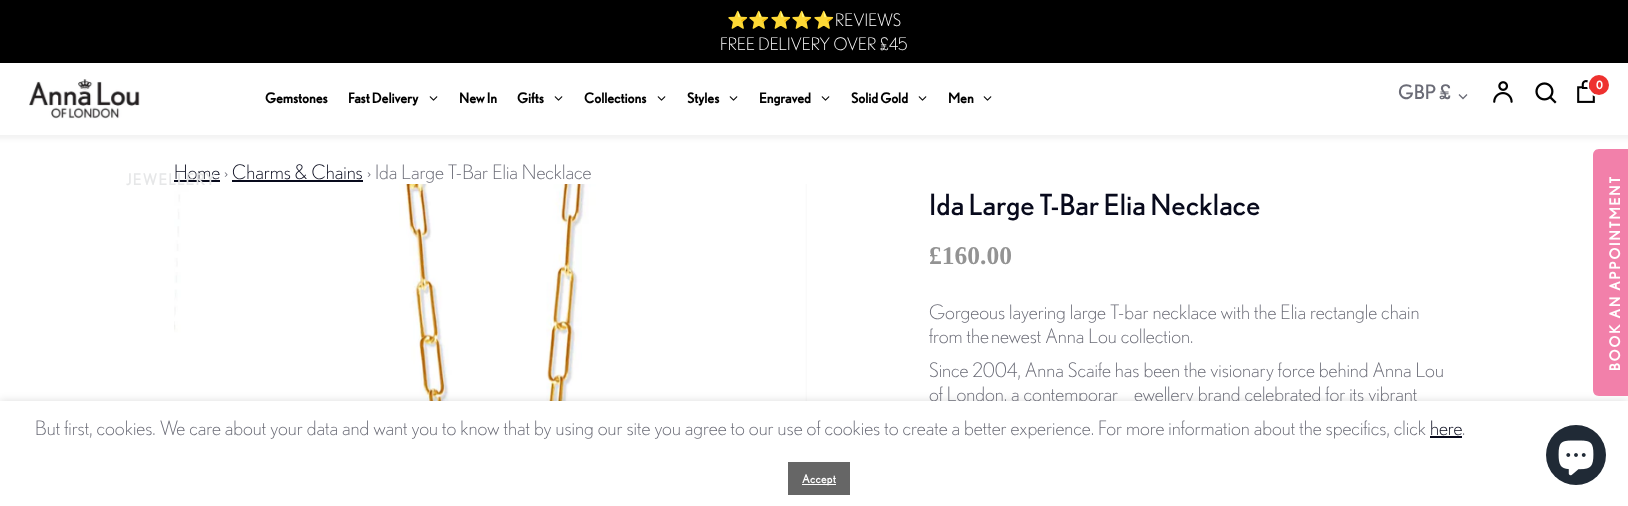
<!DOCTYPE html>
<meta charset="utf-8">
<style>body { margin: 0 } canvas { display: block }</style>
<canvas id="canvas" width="1628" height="506"></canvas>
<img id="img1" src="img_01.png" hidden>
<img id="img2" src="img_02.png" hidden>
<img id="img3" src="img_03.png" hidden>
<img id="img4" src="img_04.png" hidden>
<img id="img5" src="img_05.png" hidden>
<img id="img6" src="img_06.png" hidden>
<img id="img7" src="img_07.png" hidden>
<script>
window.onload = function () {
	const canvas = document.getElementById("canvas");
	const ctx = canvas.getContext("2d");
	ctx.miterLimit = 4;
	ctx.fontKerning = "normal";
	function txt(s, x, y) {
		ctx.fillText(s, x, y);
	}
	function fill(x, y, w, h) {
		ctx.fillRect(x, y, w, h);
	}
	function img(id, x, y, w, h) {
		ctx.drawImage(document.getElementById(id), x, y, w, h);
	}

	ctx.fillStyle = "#FFFFFF";
	fill(0, 0, 1628, 506);
	ctx.fillStyle = "#000000";
	fill(0, 0, 1628, 63);
	ctx.save();
	ctx.beginPath();
	ctx.moveTo(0, 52);
	ctx.lineTo(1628, 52);
	ctx.lineTo(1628, 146);
	ctx.lineTo(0, 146);
	ctx.closePath();
	ctx.moveTo(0, 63);
	ctx.lineTo(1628, 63);
	ctx.lineTo(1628, 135);
	ctx.lineTo(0, 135);
	ctx.closePath();
	ctx.clip("evenodd");
	ctx.fillStyle = "rgba(0, 0, 0, 0.05)";
	ctx.filter = "blur(2px)";
	ctx.beginPath();
	ctx.rect(-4, 59, 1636, 80);
	ctx.fill();
	ctx.filter = "none";
	ctx.restore();
	img("img1", 29, 79, 111, 40);
	ctx.beginPath();
	ctx.moveTo(1459, 94.5);
	ctx.lineTo(1463, 98.5);
	ctx.lineTo(1467, 94.5);
	ctx.strokeStyle = "#6B6C77";
	ctx.lineWidth = 1.3;
	ctx.stroke();
	img("img2", 1493, 81, 20, 22);
	img("img3", 1577, 80, 18, 23);
	ctx.beginPath();
	ctx.arc(1599, 85, 11, 0, Math.PI * 2);
	ctx.strokeStyle = "#FFFFFF";
	ctx.lineWidth = 2;
	ctx.stroke();
	ctx.fillStyle = "#EE312F";
	ctx.beginPath();
	ctx.arc(1599, 85, 10, 0, Math.PI * 2);
	ctx.fill();
	img("img4", 1535, 82, 22, 22);
	img("img5", 429, 96, 9, 5);
	img("img5", 554, 96, 9, 5);
	img("img5", 657, 96, 9, 5);
	img("img5", 729, 96, 9, 5);
	img("img5", 821, 96, 9, 5);
	img("img5", 918, 96, 9, 5);
	img("img5", 983, 96, 9, 5);
	ctx.fillStyle = "#080A1C";
	fill(174, 180, 46, 2);
	fill(232, 180, 131, 2);
	img("img6", 174, 184, 633, 217);
	ctx.fillStyle = "rgba(0, 0, 0, 0.14)";
	ctx.filter = "blur(4.5px)";
	ctx.beginPath();
	ctx.rect(0, 401, 1628, 105);
	ctx.fill();
	ctx.filter = "none";
	ctx.fillStyle = "#F280AA";
	ctx.beginPath();
	ctx.moveTo(1593, 390);
	ctx.lineTo(1593, 155);
	ctx.bezierCurveTo(1593, 152, 1595, 149, 1599, 149);
	ctx.lineTo(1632, 149);
	ctx.lineTo(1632, 396);
	ctx.lineTo(1599, 396);
	ctx.bezierCurveTo(1595, 396, 1593, 393, 1593, 390);
	ctx.closePath();
	ctx.fill();
	ctx.font = "17.25px Noto Color Emoji";
	ctx.fillStyle = "#FFFFFF";
	txt("⭐️⭐️⭐️⭐️⭐️", 727, 26);
	ctx.font = "300 17.25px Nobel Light";
	txt("REVIEWS", 835, 26);
	txt("FREE DELIVERY OVER £45", 720, 50);
	ctx.font = "20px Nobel";
	ctx.fillStyle = "#6B6C77";
	txt("GBP £", 1398, 99);
	ctx.font = "bold 11px Nobel";
	ctx.fillStyle = "#FFFFFF";
	txt("0", 1596, 89);
	ctx.font = "bold 14px Nobel";
	ctx.fillStyle = "#000000";
	txt("Gemstones", 265, 103);
	txt("Fast Delivery", 348, 103);
	txt("New In", 459, 103);
	txt("Gifts", 517, 103);
	txt("Collections", 584, 103);
	txt("Styles", 687, 103);
	txt("Engraved", 759, 103);
	txt("Solid Gold", 851, 103);
	txt("Men", 948, 103);
	ctx.font = "300 20px Nobel Light";
	ctx.fillStyle = "#080A1C";
	txt("Home", 174, 179);
	ctx.letterSpacing = "1px";
	ctx.font = "16px Nobel";
	ctx.fillStyle = "#E6E7E8";
	txt("JEWELLERY", 126, 185);
	ctx.letterSpacing = "0px";
	ctx.font = "300 20px Nobel Light";
	ctx.fillStyle = "#6B6C77";
	txt("›", 224, 179);
	ctx.fillStyle = "#080A1C";
	txt("Charms & Chains", 232, 179);
	ctx.fillStyle = "#6B6C77";
	txt("› Ida Large T-Bar Elia Necklace", 367, 179);
	ctx.font = "29.25px Nobel";
	ctx.fillStyle = "#080A1C";
	txt("Ida Large T-Bar Elia Necklace", 929, 215);
	ctx.font = "bold 25.5px Liberation Serif";
	ctx.fillStyle = "#939393";
	txt("£160.00", 929, 264);
	ctx.font = "300 20px Nobel Light";
	ctx.fillStyle = "#6B6C77";
	txt("Gorgeous layering large T-bar necklace with the Elia rectangle chain", 929, 319);
	txt("from the", 929, 343);
	txt("newest Anna Lou collection.", 991, 343);
	txt("Since 2004, Anna Scaife has been the visionary force behind Anna Lou", 929, 377);
	txt("of London, a contemporar", 929, 401);
	txt("ewellery brand celebrated for its vibrant", 1134, 401);
	ctx.letterSpacing = "2px";
	ctx.font = "bold 14px Nobel";
	ctx.fillStyle = "#FFFFFF";
	ctx.save();
	ctx.translate(1620, 371);
	ctx.rotate(-90 * Math.PI / 180);
	ctx.fillText("BOOK AN APPOINTMENT", 0, 0);
	ctx.restore();
	fill(0, 401, 1628, 105);
	ctx.letterSpacing = "0px";
	ctx.font = "300 20px Nobel Light";
	ctx.fillStyle = "#6B6C77";
	txt("But first, cookies. We care about your data and want you to know that by using our site you agree to our use of cookies to create a better experience. For more information about the specifics, click", 35, 435);
	ctx.fillStyle = "#080A1C";
	txt("here", 1430, 435);
	fill(1430, 436, 32, 2);
	ctx.fillStyle = "#6B6C77";
	txt(".", 1462, 435);
	ctx.fillStyle = "#666666";
	fill(788, 462, 62, 33);
	ctx.fillStyle = "#FFFFFF";
	fill(802, 484, 34, 1);
	ctx.font = "12px Nobel";
	txt("Accept", 802, 483);
	ctx.fillStyle = "#202A36";
	ctx.beginPath();
	ctx.arc(1576, 455, 30, 0, Math.PI * 2);
	ctx.fill();
	img("img7", 1558, 440, 36, 36);
};
</script>
